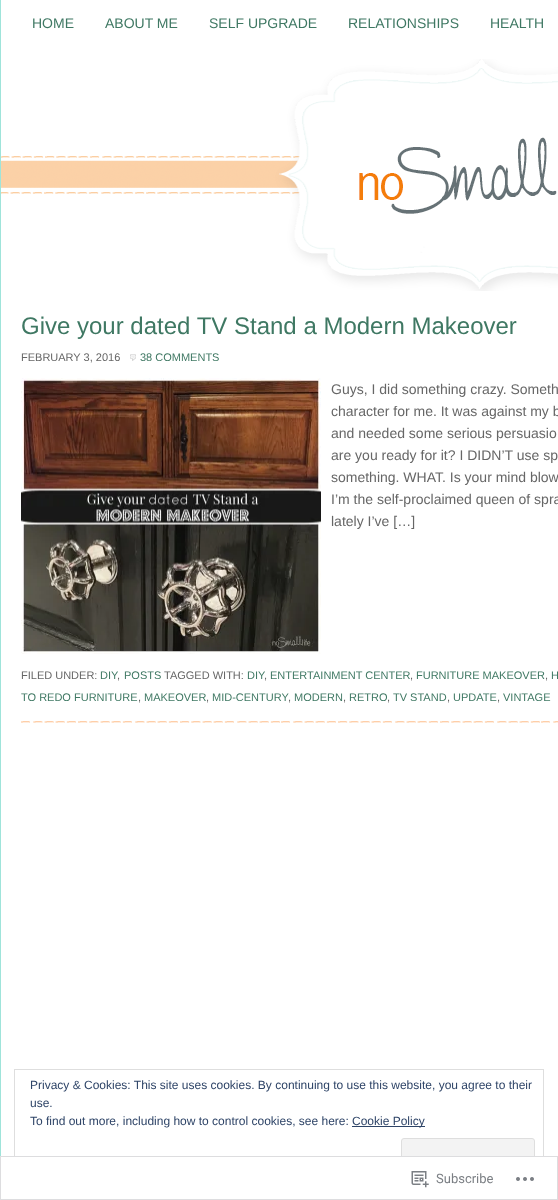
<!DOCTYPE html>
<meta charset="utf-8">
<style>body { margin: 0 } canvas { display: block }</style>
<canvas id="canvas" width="558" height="1200"></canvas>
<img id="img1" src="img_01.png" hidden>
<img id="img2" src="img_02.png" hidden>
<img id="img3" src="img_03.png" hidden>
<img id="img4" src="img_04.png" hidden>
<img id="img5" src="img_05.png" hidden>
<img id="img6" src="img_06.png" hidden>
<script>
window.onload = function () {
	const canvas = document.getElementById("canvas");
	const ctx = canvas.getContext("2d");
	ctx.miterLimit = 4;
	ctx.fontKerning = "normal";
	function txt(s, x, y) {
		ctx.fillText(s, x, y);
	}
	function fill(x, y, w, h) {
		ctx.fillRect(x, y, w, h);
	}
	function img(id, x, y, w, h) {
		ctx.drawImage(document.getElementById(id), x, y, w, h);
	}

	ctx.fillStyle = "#FFFFFF";
	fill(0, 0, 558, 1200);
	ctx.fillStyle = "#9FE4DA";
	fill(0, 0, 1, 1200);
	img("img1", 1, 59, 557, 232);
	img("img2", 21, 721, 537, 2);
	img("img3", 130, 354, 6, 7);
	img("img4", 21, 378, 300, 276);
	ctx.strokeStyle = "#DEDEDE";
	ctx.strokeRect(14.5, 1069.5, 529, 116);
	ctx.fillStyle = "#2E4467";
	fill(352, 1126, 73, 1);
	ctx.fillStyle = "#F3F3F3";
	ctx.beginPath();
	ctx.roundRect(401.5, 1138.5, 133, 38, 2.5);
	ctx.fill();
	ctx.stroke();
	ctx.fillStyle = "rgba(255, 255, 255, 0.98)";
	fill(0, 1156, 544, 44);
	ctx.strokeStyle = "rgba(220, 220, 222, 0.98)";
	ctx.strokeRect(0.5, 1156.5, 557, 43);
	img("img5", 411, 1171, 18, 17);
	img("img6", 516, 1177, 18, 4);
	ctx.font = "14px Liberation Sans";
	ctx.fillStyle = "#3F7863";
	txt("HOME", 32, 28);
	txt("ABOUT ME", 105, 28);
	txt("SELF UPGRADE", 209, 28);
	txt("RELATIONSHIPS", 348, 28);
	txt("HEALTH", 490, 28);
	ctx.font = "24px Liberation Sans";
	txt("Give your dated TV Stand a Modern Makeover", 21, 334);
	ctx.font = "11px Liberation Sans";
	ctx.fillStyle = "#666666";
	txt("FEBRUARY 3, 2016", 21, 361);
	ctx.fillStyle = "#3F7863";
	txt("38 COMMENTS", 140, 361);
	ctx.font = "14px Liberation Sans";
	ctx.fillStyle = "#666666";
	txt("Guys, I did something crazy. Someth", 331, 394);
	txt("character for me. It was against my b", 331, 416);
	txt("and needed some serious persuasio", 331, 438);
	txt("are you ready for it? I DIDN’T use sp", 331, 460);
	txt("something. WHAT. Is your mind blow", 331, 482);
	txt("I’m the self-proclaimed queen of spra", 331, 504);
	txt("lately I’ve […]", 331, 526);
	ctx.font = "11px Liberation Sans";
	txt("FILED UNDER:", 21, 679);
	ctx.fillStyle = "#3F7863";
	txt("DIY", 100, 679);
	txt("POSTS", 124, 679);
	ctx.fillStyle = "#666666";
	txt("TAGGED WITH:", 164, 679);
	ctx.fillStyle = "#3F7863";
	txt("DIY", 247, 679);
	txt("ENTERTAINMENT CENTER", 270, 679);
	txt("FURNITURE MAKEOVER", 416, 679);
	ctx.wordSpacing = "-1px";
	txt("H", 551, 679);
	ctx.wordSpacing = "0px";
	ctx.fillStyle = "#666666";
	txt(",", 117, 679);
	txt(",", 264, 679);
	txt(",", 410, 679);
	txt(",", 545, 679);
	ctx.fillStyle = "#3F7863";
	txt("TO REDO FURNITURE", 21, 701);
	ctx.fillStyle = "#666666";
	txt(",", 138, 701);
	ctx.fillStyle = "#3F7863";
	txt("MAKEOVER", 144, 701);
	ctx.fillStyle = "#666666";
	txt(",", 206, 701);
	ctx.fillStyle = "#3F7863";
	txt("MID-CENTURY", 212, 701);
	txt("MODERN", 294, 701);
	txt("RETRO", 349, 701);
	txt("TV STAND", 393, 701);
	txt("UPDATE", 453, 701);
	txt("VINTAGE", 503, 701);
	ctx.fillStyle = "#666666";
	txt(",", 288, 701);
	txt(",", 343, 701);
	txt(",", 387, 701);
	txt(",", 447, 701);
	txt(",", 497, 701);
	ctx.font = "12px Liberation Sans";
	ctx.fillStyle = "#2E4467";
	txt("Privacy & Cookies: This site uses cookies. By continuing to use this website, you agree to their", 30, 1089);
	txt("use.", 30, 1107);
	txt("To find out more, including how to control cookies, see here:", 30, 1125);
	txt("Cookie Policy", 352, 1125);
	ctx.font = "13px Roboto";
	ctx.fillStyle = "#7B7F84";
	txt("Subscribe", 436, 1183);
};
</script>
